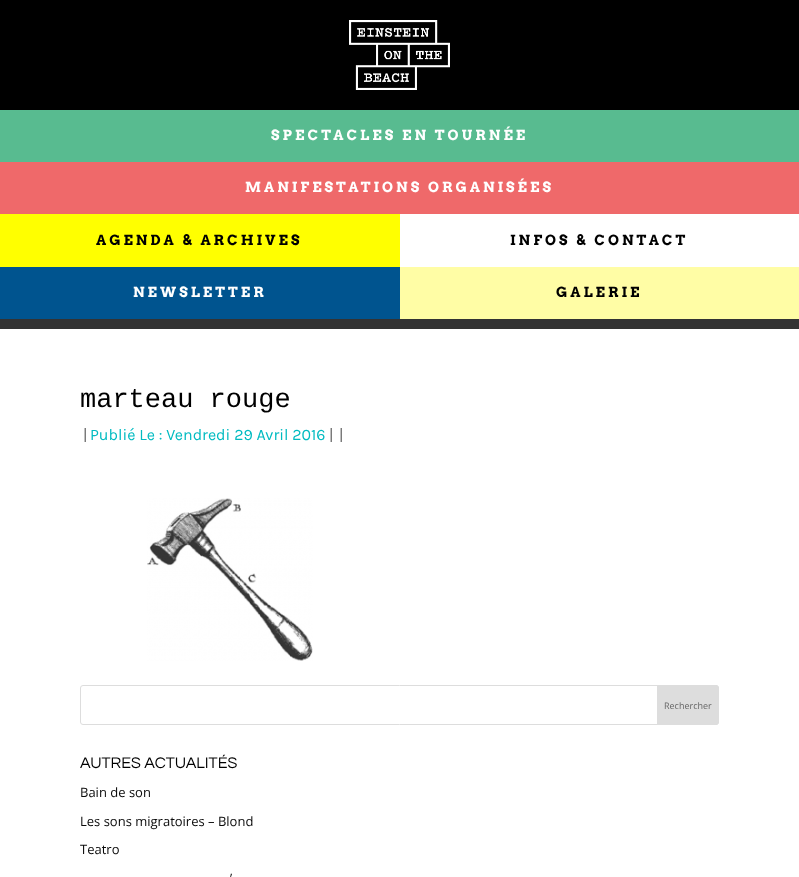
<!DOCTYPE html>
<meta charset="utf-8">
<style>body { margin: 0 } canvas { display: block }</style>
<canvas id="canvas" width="799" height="877"></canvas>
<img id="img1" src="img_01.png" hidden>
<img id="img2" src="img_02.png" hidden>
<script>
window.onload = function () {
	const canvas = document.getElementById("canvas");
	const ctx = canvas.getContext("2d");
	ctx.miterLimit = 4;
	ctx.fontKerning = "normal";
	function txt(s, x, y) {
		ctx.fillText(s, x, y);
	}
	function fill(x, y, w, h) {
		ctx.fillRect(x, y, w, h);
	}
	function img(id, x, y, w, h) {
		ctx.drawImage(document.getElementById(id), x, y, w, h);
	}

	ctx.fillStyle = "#FFFFFF";
	fill(0, 0, 799, 877);
	ctx.fillStyle = "#000000";
	fill(0, 0, 799, 110);
	img("img1", 349, 20, 101, 70);
	ctx.fillStyle = "#58BB90";
	fill(0, 110, 799, 52);
	ctx.fillStyle = "#EF696A";
	fill(0, 162, 799, 52);
	ctx.fillStyle = "#333333";
	fill(0, 319, 799, 10);
	ctx.fillStyle = "#FFFF00";
	fill(0, 214, 400, 53);
	ctx.fillStyle = "#00548F";
	fill(0, 267, 400, 52);
	ctx.fillStyle = "#FFFDA5";
	fill(400, 267, 399, 52);
	img("img2", 147, 498, 166, 163);
	ctx.beginPath();
	ctx.roundRect(80.5, 685.5, 638, 39, 2.5);
	ctx.strokeStyle = "#DDDDDD";
	ctx.stroke();
	ctx.fillStyle = "#DDDDDD";
	ctx.beginPath();
	ctx.roundRect(657.5, 685.5, 61, 39, [0, 2.5, 2.5, 0]);
	ctx.fill();
	ctx.stroke();
	ctx.letterSpacing = "3px";
	ctx.font = "bold 14px Arvo";
	ctx.fillStyle = "#FFFFFF";
	txt("SPECTACLES EN TOURNÉE", 271, 140);
	txt("MANIFESTATIONS ORGANISÉES", 245, 192);
	ctx.fillStyle = "#000000";
	txt("AGENDA & ARCHIVES", 96, 245);
	txt("INFOS & CONTACT", 510, 245);
	ctx.fillStyle = "#FFFFFF";
	txt("NEWSLETTER", 133, 297);
	ctx.fillStyle = "#000000";
	txt("GALERIE", 556, 297);
	ctx.letterSpacing = "0px";
	ctx.font = "27px Liberation Mono";
	txt("marteau rouge", 80, 407);
	ctx.font = "16px Karla";
	ctx.fillStyle = "#666666";
	txt("|", 83, 440);
	ctx.fillStyle = "#01BBC1";
	txt("Publié Le : Vendredi 29 Avril 2016", 90, 440);
	ctx.fillStyle = "#666666";
	txt("|", 329, 440);
	txt("|", 339, 440);
	ctx.font = "9px Open Sans";
	txt("Rechercher", 664, 709);
	ctx.font = "16px Questrial";
	ctx.fillStyle = "#000000";
	txt("AUTRES ACTUALITÉS", 80, 768);
	ctx.font = "13px Open Sans";
	ctx.fillStyle = "#0A0A0A";
	txt("Bain de son", 80, 797);
	txt("Les sons migratoires – Blond", 80, 826);
	txt("Teatro", 80, 854);
	txt("’", 230, 883);
};
</script>
